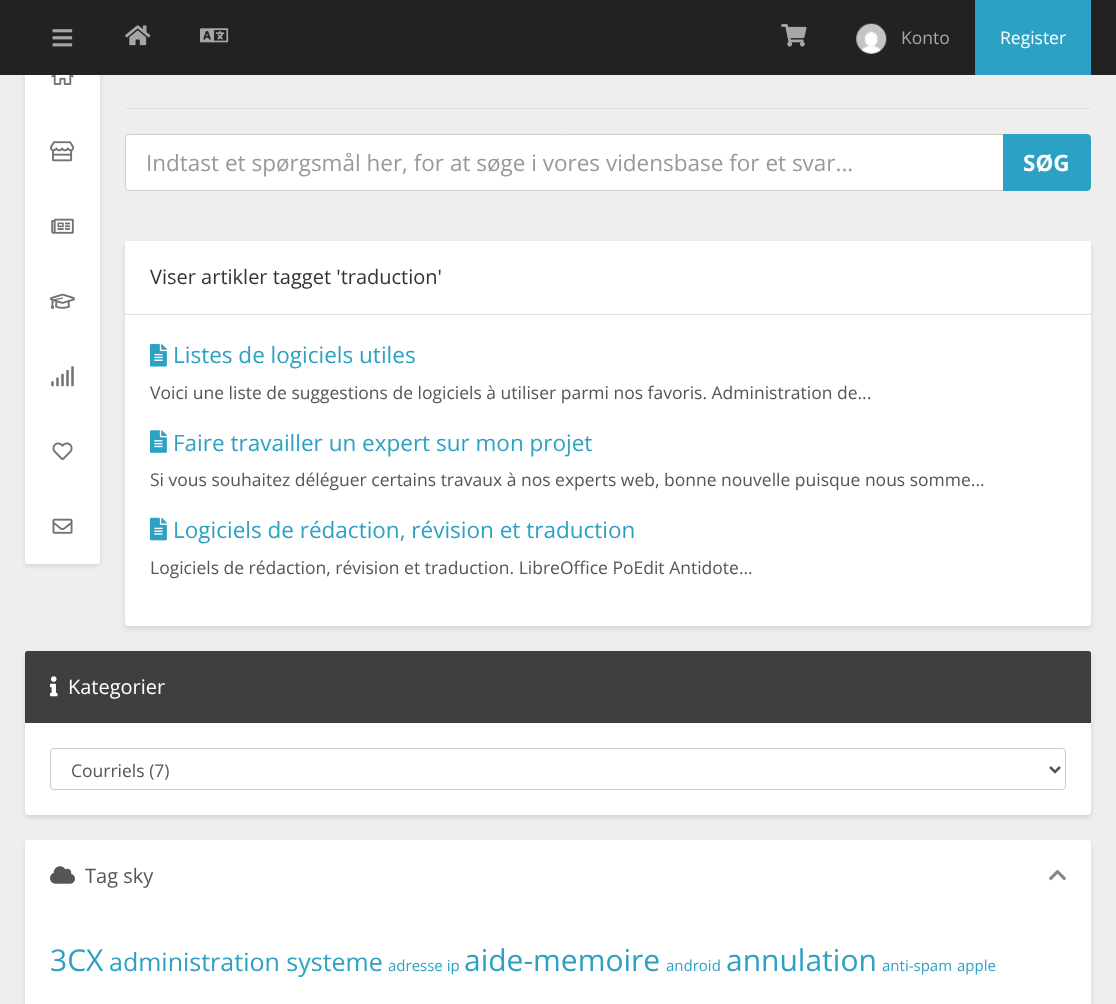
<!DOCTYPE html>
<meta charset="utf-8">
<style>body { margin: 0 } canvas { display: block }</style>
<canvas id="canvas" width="1116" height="1004"></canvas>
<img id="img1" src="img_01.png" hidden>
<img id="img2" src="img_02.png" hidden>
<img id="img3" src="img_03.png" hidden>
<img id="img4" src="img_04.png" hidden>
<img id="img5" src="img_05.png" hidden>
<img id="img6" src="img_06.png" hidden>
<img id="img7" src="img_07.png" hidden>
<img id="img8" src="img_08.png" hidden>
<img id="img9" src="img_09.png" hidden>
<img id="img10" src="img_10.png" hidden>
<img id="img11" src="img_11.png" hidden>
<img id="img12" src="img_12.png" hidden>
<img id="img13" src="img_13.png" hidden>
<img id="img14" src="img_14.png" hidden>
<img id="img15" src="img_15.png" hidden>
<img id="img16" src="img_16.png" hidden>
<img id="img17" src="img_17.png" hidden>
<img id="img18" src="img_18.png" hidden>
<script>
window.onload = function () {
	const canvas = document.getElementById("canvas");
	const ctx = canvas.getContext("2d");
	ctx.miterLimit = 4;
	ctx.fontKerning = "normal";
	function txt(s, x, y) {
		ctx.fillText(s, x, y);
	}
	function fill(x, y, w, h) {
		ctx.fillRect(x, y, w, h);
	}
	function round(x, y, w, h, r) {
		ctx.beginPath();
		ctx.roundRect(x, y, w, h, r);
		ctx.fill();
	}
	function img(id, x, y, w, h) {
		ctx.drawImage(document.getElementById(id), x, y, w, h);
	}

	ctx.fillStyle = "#EEEEEE";
	fill(0, 0, 1116, 1004);
	ctx.fillStyle = "rgba(0, 0, 0, 0.1)";
	ctx.filter = "blur(2.5px)";
	ctx.beginPath();
	ctx.roundRect(25, 41, 75, 525, 4);
	ctx.fill();
	ctx.filter = "none";
	ctx.fillStyle = "#FFFFFF";
	round(25, 39, 75, 525, 4);
	ctx.fillStyle = "#222222";
	fill(0, 0, 1116, 75);
	img("img1", 52, 29, 21, 18);
	img("img2", 125, 25, 26, 21);
	img("img3", 200, 28, 29, 15);
	img("img4", 781, 24, 26, 23);
	img("img5", 856, 23, 31, 31);
	ctx.fillStyle = "#2CA1C3";
	fill(975, 0, 116, 75);
	img("img6", 51, 75, 23, 10);
	img("img7", 50, 141, 25, 21);
	img("img8", 51, 218, 23, 16);
	img("img9", 50, 293, 25, 16);
	img("img10", 51, 366, 23, 21);
	img("img11", 52, 442, 21, 18);
	img("img12", 52, 518, 21, 16);
	ctx.fillStyle = "#E1E1E1";
	fill(125, 108, 966, 1);
	ctx.fillStyle = "#FFFFFF";
	ctx.beginPath();
	ctx.roundRect(125.5, 134.5, 878, 56, [3.5, 0, 0, 3.5]);
	ctx.fill();
	ctx.strokeStyle = "#CCCCCC";
	ctx.stroke();
	ctx.fillStyle = "#2CA1C3";
	ctx.beginPath();
	ctx.roundRect(1003.5, 134.5, 87, 56, [0, 3.5, 3.5, 0]);
	ctx.fill();
	ctx.strokeStyle = "#2CA1C3";
	ctx.stroke();
	ctx.fillStyle = "rgba(0, 0, 0, 0.1)";
	ctx.filter = "blur(2.5px)";
	ctx.beginPath();
	ctx.roundRect(125, 244, 966, 385, 4);
	ctx.fill();
	ctx.filter = "none";
	ctx.fillStyle = "#FFFFFF";
	round(125, 241, 966, 385, 4);
	ctx.beginPath();
	ctx.roundRect(125, 241, 966, 74, [2.5, 2.5, 0, 0]);
	ctx.fill();
	ctx.fillStyle = "#E1E1E1";
	fill(125, 314, 966, 1);
	img("img13", 150, 344, 17, 23);
	img("img14", 150, 430, 17, 23);
	img("img15", 150, 517, 17, 24);
	ctx.fillStyle = "rgba(0, 0, 0, 0.1)";
	ctx.filter = "blur(2.5px)";
	ctx.beginPath();
	ctx.roundRect(25, 654, 1066, 164, 4);
	ctx.fill();
	ctx.filter = "none";
	ctx.fillStyle = "#FFFFFF";
	round(25, 651, 1066, 164, 4);
	ctx.fillStyle = "#3F3F3F";
	ctx.beginPath();
	ctx.roundRect(25, 651, 1066, 72, [2.5, 2.5, 0, 0]);
	ctx.fill();
	img("img16", 50, 676, 8, 21);
	ctx.beginPath();
	ctx.roundRect(50.5, 748.5, 1015, 41, 3.5);
	ctx.strokeStyle = "#CCCCCC";
	ctx.stroke();
	ctx.beginPath();
	ctx.moveTo(1050, 767);
	ctx.lineTo(1055, 772);
	ctx.lineTo(1060, 767);
	ctx.strokeStyle = "#555555";
	ctx.lineWidth = 2.5;
	ctx.stroke();
	ctx.fillStyle = "rgba(0, 0, 0, 0.1)";
	ctx.filter = "blur(2.5px)";
	ctx.beginPath();
	ctx.roundRect(25, 843, 1066, 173, 4);
	ctx.fill();
	ctx.filter = "none";
	ctx.fillStyle = "#FFFFFF";
	round(25, 840, 1066, 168, 4);
	img("img17", 50, 866, 25, 18);
	img("img18", 1049, 869, 17, 12);
	ctx.font = "17.5px Open Sans";
	ctx.fillStyle = "#A7A7A7";
	txt("Konto", 901, 44);
	ctx.fillStyle = "#FFFFFF";
	txt("Register", 1000, 44);
	ctx.font = "22.5px Open Sans";
	ctx.fillStyle = "#999999";
	txt("Indtast et spørgsmål her, for at søge i vores vidensbase for et svar...", 146, 171);
	ctx.font = "bold 22.5px Open Sans";
	ctx.fillStyle = "#FFFFFF";
	txt("SØG", 1023, 171);
	ctx.font = "20px Open Sans";
	ctx.fillStyle = "#333333";
	txt("Viser artikler tagget 'traduction'", 150, 284);
	ctx.font = "22.5px Open Sans";
	ctx.fillStyle = "#2CA1C3";
	txt("Listes de logiciels utiles", 173, 363);
	ctx.font = "17.5px Open Sans";
	ctx.fillStyle = "#555555";
	txt("Voici une liste de suggestions de logiciels à utiliser parmi nos favoris. Administration de...", 150, 399);
	ctx.font = "22.5px Open Sans";
	ctx.fillStyle = "#2CA1C3";
	txt("Faire travailler un expert sur mon projet", 173, 451);
	ctx.font = "17.5px Open Sans";
	ctx.fillStyle = "#555555";
	txt("Si vous souhaitez déléguer certains travaux à nos experts web, bonne nouvelle puisque nous somme...", 150, 486);
	ctx.font = "22.5px Open Sans";
	ctx.fillStyle = "#2CA1C3";
	txt("Logiciels de rédaction, révision et traduction", 173, 538);
	ctx.font = "17.5px Open Sans";
	ctx.fillStyle = "#555555";
	txt("Logiciels de rédaction, révision et traduction. LibreOffice PoEdit Antidote...", 150, 574);
	ctx.font = "20px Open Sans";
	ctx.fillStyle = "#FFFFFF";
	txt("Kategorier", 68, 694);
	ctx.font = "17.5px Open Sans";
	ctx.fillStyle = "#555555";
	txt("Courriels (7)", 71, 777);
	ctx.font = "20px Open Sans";
	txt("Tag sky", 85, 883);
	ctx.font = "30px Open Sans";
	ctx.fillStyle = "#2CA1C3";
	txt("3CX", 50, 971);
	ctx.font = "25px Open Sans";
	txt("administration systeme", 109, 971);
	ctx.font = "15px Open Sans";
	txt("adresse ip", 388, 971);
	ctx.font = "30px Open Sans";
	txt("aide-memoire", 464, 971);
	ctx.font = "15px Open Sans";
	txt("android", 666, 971);
	ctx.font = "30px Open Sans";
	txt("annulation", 726, 971);
	ctx.font = "15px Open Sans";
	txt("anti-spam", 882, 971);
	txt("apple", 957, 971);
};
</script>
